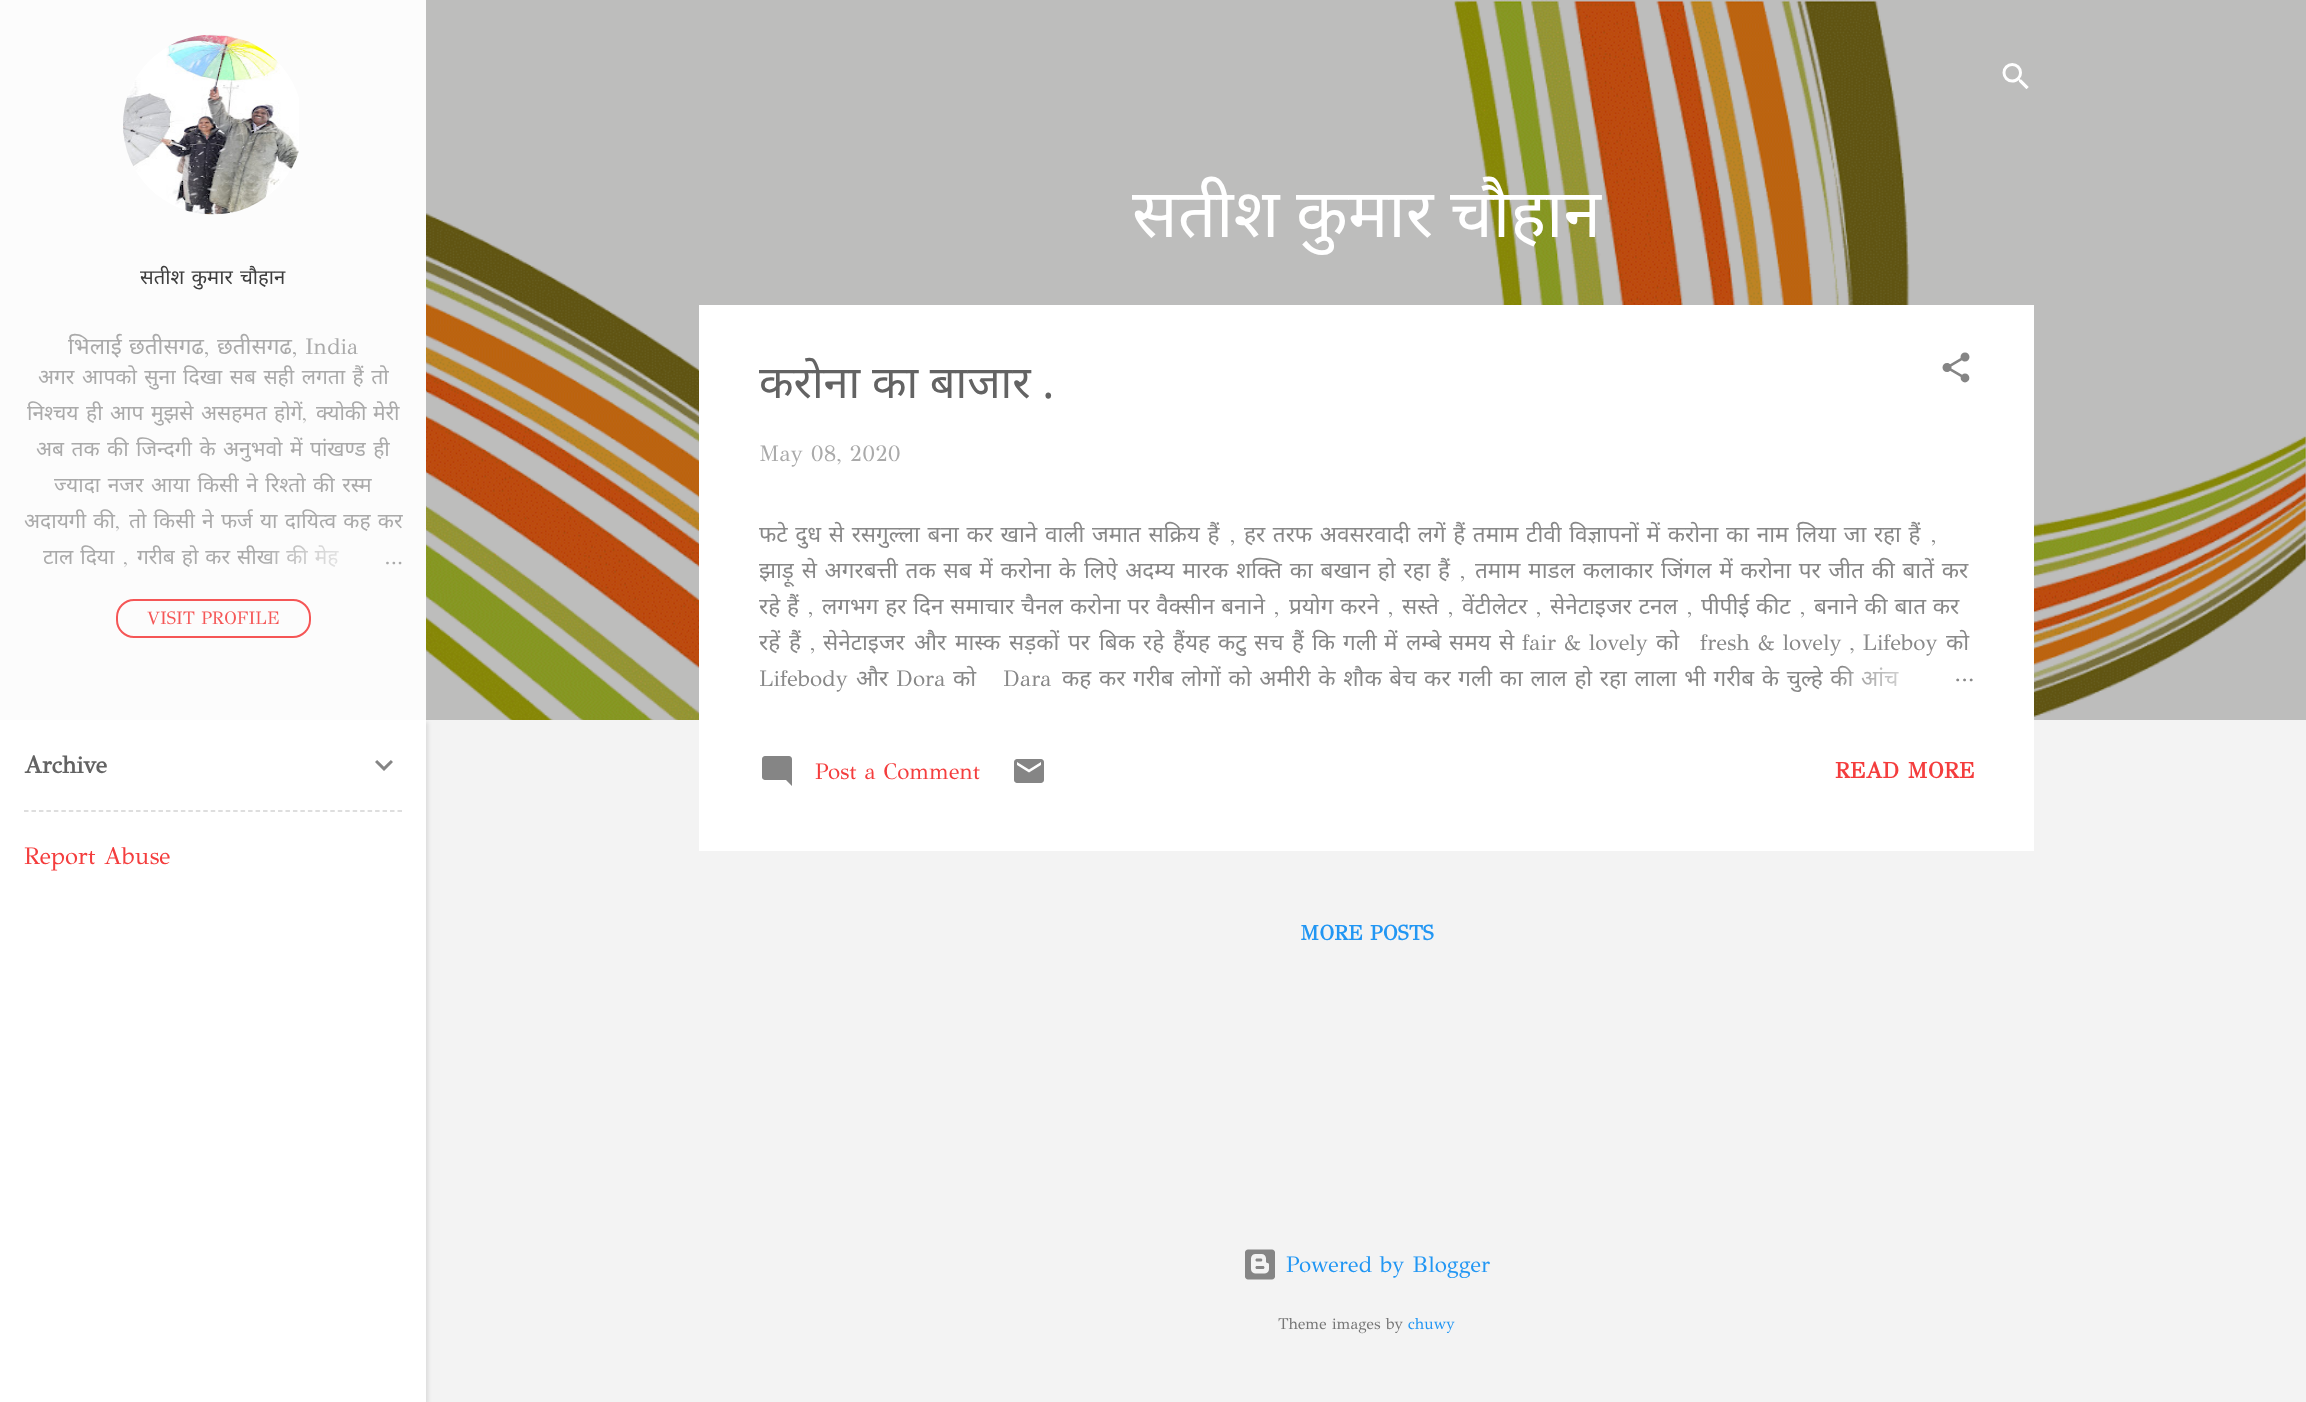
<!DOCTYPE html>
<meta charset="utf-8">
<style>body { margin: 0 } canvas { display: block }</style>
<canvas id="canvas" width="2306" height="1402"></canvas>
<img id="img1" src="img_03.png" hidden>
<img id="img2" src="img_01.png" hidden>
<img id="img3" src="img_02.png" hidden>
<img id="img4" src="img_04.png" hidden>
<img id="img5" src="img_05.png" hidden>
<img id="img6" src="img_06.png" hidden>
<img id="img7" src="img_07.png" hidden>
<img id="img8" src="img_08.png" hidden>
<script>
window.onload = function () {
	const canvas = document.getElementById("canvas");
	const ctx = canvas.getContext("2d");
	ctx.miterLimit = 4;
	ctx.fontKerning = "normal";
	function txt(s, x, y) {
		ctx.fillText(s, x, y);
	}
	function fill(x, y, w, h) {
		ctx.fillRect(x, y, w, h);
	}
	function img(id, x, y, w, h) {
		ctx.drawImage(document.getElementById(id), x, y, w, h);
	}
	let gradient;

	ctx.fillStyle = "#F3F3F3";
	fill(0, 0, 2306, 1402);
	img("img1", 426, 0, 1880, 720);
	ctx.fillStyle = "rgba(0, 0, 0, 0.1)";
	ctx.filter = "blur(2px)";
	ctx.beginPath();
	ctx.rect(2, 722, 426, 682);
	ctx.fill();
	ctx.filter = "none";
	ctx.fillStyle = "#FFFFFF";
	fill(0, 720, 426, 682);
	ctx.fillStyle = "#FCFCFC";
	fill(0, 0, 426, 720);
	img("img2", 123, 34, 176, 181);
	ctx.beginPath();
	ctx.roundRect(117, 600, 193, 37, 17);
	ctx.strokeStyle = "#F55656";
	ctx.lineWidth = 2;
	ctx.stroke();
	img("img3", 375, 760, 18, 11);
	ctx.beginPath();
	ctx.moveTo(24, 811);
	ctx.lineTo(402, 811);
	ctx.strokeStyle = "#D3D3D3";
	ctx.lineWidth = 1.5;
	ctx.setLineDash([4.5, 2.97]);
	ctx.stroke();
	img("img4", 2002, 63, 27, 26);
	ctx.fillStyle = "#FFFFFF";
	fill(699, 305, 1335, 546);
	img("img5", 1942, 352, 28, 31);
	img("img6", 762, 756, 30, 30);
	img("img7", 1014, 759, 30, 24);
	img("img8", 1245, 1249, 30, 31);
	ctx.wordSpacing = "2px";
	ctx.font = "20.25px Noto Sans";
	ctx.fillStyle = "#3D3D3D";
	txt("सतीश कुमार चौहान", 140, 284);
	ctx.wordSpacing = "0px";
	ctx.font = "22.5px Noto Sans";
	ctx.fillStyle = "#AAAAAA";
	txt("भिलाई", 68, 354);
	txt("छतीसगढ", 129, 354);
	ctx.font = "22.5px GFS Didot";
	txt(",", 204, 354);
	ctx.font = "22.5px Noto Sans";
	txt("छतीसगढ", 217, 354);
	ctx.font = "22.5px GFS Didot";
	txt(", India", 292, 354);
	ctx.wordSpacing = "2px";
	ctx.font = "21px Noto Sans";
	txt("अगर आपको सुना दिखा सब सही लगता हैं तो", 38, 384);
	txt("निश्‍चय ही आप मुझसे असहमत", 27, 420);
	ctx.wordSpacing = "0px";
	txt("होगें", 274, 420);
	ctx.font = "21px GFS Didot";
	txt(",", 302, 420);
	ctx.wordSpacing = "1px";
	ctx.font = "21px Noto Sans";
	txt("क्‍योकी मेरी", 316, 420);
	ctx.wordSpacing = "2px";
	txt("अब तक की", 36, 456);
	txt("जिन्‍दगी के अनुभवो में", 136, 456);
	txt("पांखण्‍ड ही", 310, 456);
	txt("ज्‍यादा नजर आया किसी ने रिश्‍तो की रस्‍म", 54, 492);
	ctx.wordSpacing = "1.75px";
	txt("अदायगी की", 24, 528);
	ctx.wordSpacing = "0px";
	ctx.font = "21px GFS Didot";
	txt(",", 115, 528);
	ctx.wordSpacing = "1.75px";
	ctx.font = "21px Noto Sans";
	txt("तो किसी ने फर्ज या दायित्‍व कह कर", 129, 528);
	ctx.wordSpacing = "1.5px";
	txt("टाल दिया", 43, 564);
	ctx.wordSpacing = "0px";
	ctx.font = "21px GFS Didot";
	txt(",", 123, 564);
	ctx.wordSpacing = "1.5px";
	ctx.font = "21px Noto Sans";
	txt("गरीब हो कर सीखा की मेह", 137, 564);
	gradient = ctx.createLinearGradient(402, 558, 258, 558);
	gradient.addColorStop(0, "#FCFCFC");
	gradient.addColorStop(0.2, "#FCFCFC");
	gradient.addColorStop(1, "rgba(252, 252, 252, 0)");
	ctx.fillStyle = gradient;
	fill(261, 545, 78, 22);
	ctx.wordSpacing = "0px";
	ctx.font = "21px GFS Didot";
	ctx.fillStyle = "#AAAAAA";
	txt("…", 384, 564);
	ctx.font = "18px GFS Didot";
	ctx.fillStyle = "#F55656";
	txt("VISIT PROFILE", 147, 624);
	ctx.font = "bold 24px GFS Didot";
	ctx.fillStyle = "#636363";
	txt("Archive", 24, 773);
	ctx.font = "24px GFS Didot";
	ctx.fillStyle = "#F43D3D";
	txt("Report Abuse", 24, 864);
	ctx.wordSpacing = "-1px";
	ctx.font = "67.5px Noto Sans";
	ctx.fillStyle = "#FFFFFF";
	txt("सतीश कुमार चौहान", 1132, 237);
	ctx.wordSpacing = "0px";
	ctx.font = "45px Noto Sans";
	ctx.fillStyle = "#636363";
	txt("करोना का बाजार .", 759, 398);
	ctx.font = "22.5px GFS Didot";
	ctx.fillStyle = "#AAAAAA";
	txt("May 08, 2020", 759, 461);
	ctx.wordSpacing = "1.8px";
	ctx.font = "22.5px Noto Sans";
	ctx.fillStyle = "#888888";
	txt("फटे दुध से रसगुल्ला बना कर खाने वाली जमात सक्रिय हैं", 759, 542);
	ctx.wordSpacing = "0px";
	ctx.font = "22.5px GFS Didot";
	txt(",", 1230, 542);
	ctx.wordSpacing = "1.8px";
	ctx.font = "22.5px Noto Sans";
	txt("हर तरफ अवसरवादी लगें हैं तमाम टीवी विज्ञापनों में करोना का नाम लिया जा रहा हैं", 1244, 542);
	ctx.wordSpacing = "0px";
	ctx.font = "22.5px GFS Didot";
	txt(",", 1931, 542);
	ctx.wordSpacing = "1.9px";
	ctx.font = "22.5px Noto Sans";
	txt("झाड़ू से अगरबत्ती तक सब में करोना के लिऐ अदम्य मारक शक्ति का बखान हो रहा हैं", 759, 578);
	ctx.wordSpacing = "0px";
	ctx.font = "22.5px GFS Didot";
	txt(",", 1460, 578);
	ctx.wordSpacing = "1.9px";
	ctx.font = "22.5px Noto Sans";
	txt("तमाम माडल कलाकार जिंगल में करोना पर जीत की बातें कर", 1475, 578);
	ctx.wordSpacing = "1px";
	txt("रहे हैं", 759, 614);
	ctx.wordSpacing = "0px";
	ctx.font = "22.5px GFS Didot";
	txt(",", 808, 614);
	ctx.wordSpacing = "1px";
	ctx.font = "22.5px Noto Sans";
	txt("लगभग हर दिन समाचार चैनल करोना पर वैक्सीन बनाने", 822, 614);
	ctx.wordSpacing = "0px";
	ctx.font = "22.5px GFS Didot";
	txt(",", 1274, 614);
	ctx.wordSpacing = "1px";
	ctx.font = "22.5px Noto Sans";
	txt("प्रयोग करने", 1289, 614);
	ctx.wordSpacing = "0px";
	ctx.font = "22.5px GFS Didot";
	txt(",", 1388, 614);
	ctx.font = "22.5px Noto Sans";
	txt("सस्ते", 1402, 614);
	ctx.font = "22.5px GFS Didot";
	txt(",", 1448, 614);
	ctx.font = "22.5px Noto Sans";
	txt("वेंटीलेटर", 1462, 614);
	ctx.font = "22.5px GFS Didot";
	txt(",", 1536, 614);
	ctx.wordSpacing = "1px";
	ctx.font = "22.5px Noto Sans";
	txt("सेनेटाइजर टनल", 1550, 614);
	ctx.wordSpacing = "0px";
	ctx.font = "22.5px GFS Didot";
	txt(",", 1687, 614);
	ctx.wordSpacing = "1px";
	ctx.font = "22.5px Noto Sans";
	txt("पीपीई कीट", 1701, 614);
	ctx.wordSpacing = "0px";
	ctx.font = "22.5px GFS Didot";
	txt(",", 1800, 614);
	ctx.wordSpacing = "1px";
	ctx.font = "22.5px Noto Sans";
	txt("बनाने की बात कर", 1814, 614);
	ctx.wordSpacing = "0px";
	txt("रहें", 759, 650);
	txt("हैं", 789, 650);
	ctx.font = "22.5px GFS Didot";
	txt(",", 810, 650);
	ctx.font = "22.5px Noto Sans";
	txt("सेनेटाइजर", 823, 650);
	txt("और", 914, 650);
	txt("मास्क", 955, 650);
	txt("सड़कों", 1009, 650);
	txt("पर", 1068, 650);
	txt("बिक", 1099, 650);
	txt("रहे", 1143, 650);
	txt("हैंयह", 1173, 650);
	txt("कटु", 1218, 650);
	txt("सच", 1254, 650);
	txt("हैं", 1292, 650);
	txt("कि", 1312, 650);
	txt("गली", 1343, 650);
	txt("में", 1384, 650);
	txt("लम्बे", 1406, 650);
	txt("समय", 1449, 650);
	txt("से", 1499, 650);
	ctx.font = "22.5px GFS Didot";
	txt("fair & lovely", 1522, 650);
	ctx.font = "22.5px Noto Sans";
	txt("को", 1656, 650);
	ctx.font = "22.5px GFS Didot";
	txt("fresh & lovely , Lifeboy", 1700, 650);
	ctx.font = "22.5px Noto Sans";
	txt("को", 1946, 650);
	ctx.font = "22.5px GFS Didot";
	txt("Lifebody", 759, 686);
	ctx.font = "22.5px Noto Sans";
	txt("और", 856, 686);
	ctx.font = "22.5px GFS Didot";
	txt("Dora", 896, 686);
	ctx.font = "22.5px Noto Sans";
	txt("को", 953, 686);
	ctx.font = "22.5px GFS Didot";
	txt("Dara", 1003, 686);
	ctx.wordSpacing = "1.8px";
	ctx.font = "22.5px Noto Sans";
	txt("कह कर गरीब लोगों को अमीरी के शौक बेच कर गली का लाल हो रहा लाला भी गरीब के चुल्‍‍हे की आंच", 1062, 686);
	gradient = ctx.createLinearGradient(1974, 678, 1830, 678);
	gradient.addColorStop(0, "#FFFFFF");
	gradient.addColorStop(0.2, "#FFFFFF");
	gradient.addColorStop(1, "rgba(255, 255, 255, 0)");
	ctx.fillStyle = gradient;
	fill(1832, 667, 67, 19);
	ctx.wordSpacing = "0px";
	ctx.font = "22.5px GFS Didot";
	ctx.fillStyle = "#888888";
	txt("…", 1954, 681);
	ctx.fillStyle = "#F43D3D";
	txt("Post a Comment", 815, 779);
	ctx.font = "bold 22.5px GFS Didot";
	txt("READ MORE", 1835, 778);
	ctx.font = "bold 21px GFS Didot";
	ctx.fillStyle = "#2196F3";
	txt("MORE POSTS", 1300, 940);
	ctx.font = "22.5px GFS Didot";
	txt("Powered by Blogger", 1286, 1272);
	ctx.font = "15.75px GFS Didot";
	ctx.fillStyle = "#757575";
	txt("Theme images by", 1278, 1329);
	ctx.fillStyle = "#2196F3";
	txt("chuwy", 1408, 1329);
};
</script>
